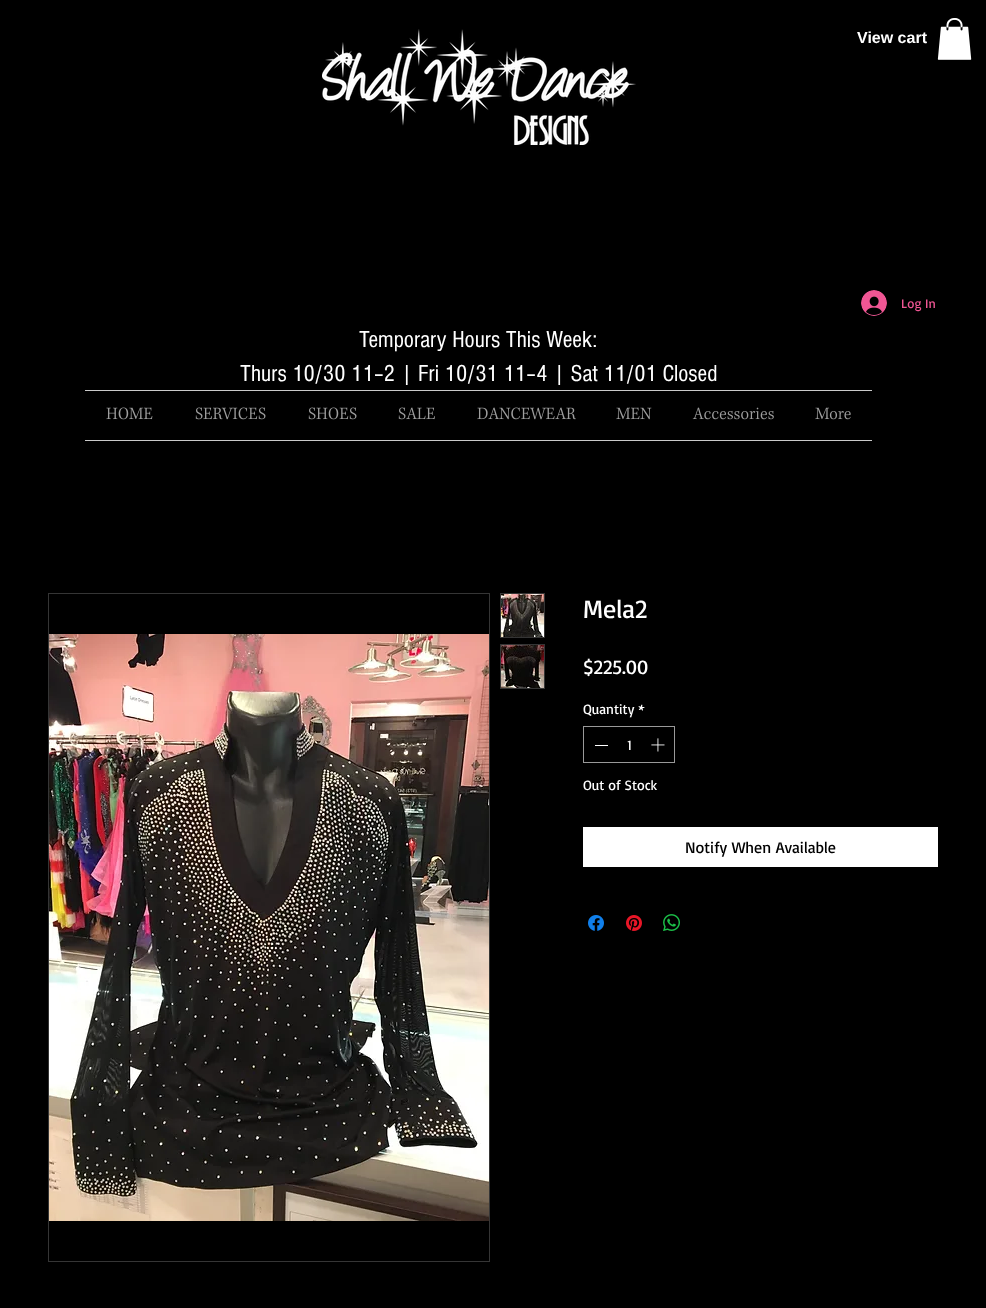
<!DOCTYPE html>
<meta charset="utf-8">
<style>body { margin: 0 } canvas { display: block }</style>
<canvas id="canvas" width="986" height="1308"></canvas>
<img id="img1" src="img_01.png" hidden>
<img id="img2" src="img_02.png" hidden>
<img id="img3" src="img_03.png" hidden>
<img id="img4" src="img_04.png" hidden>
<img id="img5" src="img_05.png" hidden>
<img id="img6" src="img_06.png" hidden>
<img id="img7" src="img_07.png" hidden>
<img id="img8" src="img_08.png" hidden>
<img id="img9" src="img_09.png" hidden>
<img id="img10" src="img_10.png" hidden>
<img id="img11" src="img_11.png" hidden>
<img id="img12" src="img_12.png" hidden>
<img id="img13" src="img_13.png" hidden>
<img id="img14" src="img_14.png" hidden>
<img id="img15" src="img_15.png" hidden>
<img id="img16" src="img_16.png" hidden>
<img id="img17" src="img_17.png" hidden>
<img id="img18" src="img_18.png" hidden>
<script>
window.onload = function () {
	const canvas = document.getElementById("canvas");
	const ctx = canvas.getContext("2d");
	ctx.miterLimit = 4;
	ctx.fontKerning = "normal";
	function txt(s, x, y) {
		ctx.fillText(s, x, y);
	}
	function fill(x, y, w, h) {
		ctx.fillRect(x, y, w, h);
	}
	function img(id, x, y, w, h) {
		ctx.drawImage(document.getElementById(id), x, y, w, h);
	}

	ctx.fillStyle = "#000000";
	fill(0, 0, 986, 1308);
	img("img1", 322, 29, 314, 116);
	img("img2", 937, 18, 35, 42);
	img("img3", 861, 290, 26, 26);
	ctx.fillStyle = "#CACACA";
	fill(85, 390, 787, 1);
	fill(85, 440, 787, 1);
	img("img4", 106, 407, 47, 13);
	img("img5", 195, 407, 71, 13);
	img("img6", 308, 407, 49, 13);
	img("img7", 398, 407, 37, 13);
	img("img8", 477, 407, 99, 13);
	img("img9", 616, 407, 36, 13);
	img("img10", 692, 407, 82, 13);
	img("img11", 815, 407, 36, 13);
	ctx.strokeStyle = "#353535";
	ctx.strokeRect(48.5, 593.5, 441, 668);
	img("img12", 49, 634, 440, 587);
	ctx.strokeRect(500.5, 593.5, 44, 44);
	img("img13", 501, 594, 43, 43);
	ctx.strokeRect(500.5, 644.5, 44, 44);
	img("img14", 501, 645, 43, 43);
	ctx.strokeStyle = "#999999";
	ctx.strokeRect(583.5, 726.5, 91, 36);
	ctx.fillStyle = "#FFFFFF";
	fill(595, 745, 13, 1);
	img("img15", 651, 738, 14, 14);
	fill(583, 827, 355, 40);
	img("img16", 588, 915, 16, 16);
	img("img17", 626, 915, 16, 16);
	img("img18", 663, 914, 17, 17);
	ctx.font = "bold 16px Liberation Sans";
	txt("View cart", 857, 43);
	ctx.font = "13px Basic";
	ctx.fillStyle = "#F05694";
	txt("Log In", 901, 308);
	ctx.font = "24px 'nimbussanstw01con'";
	ctx.fillStyle = "#FFFFFF";
	txt("Temporary Hours This Week:", 359, 347);
	txt("Thurs 10/30 11–2 | Fri 10/31 11–4 | Sat 11/01 Closed", 240, 381);
	ctx.font = "26px Basic";
	txt("Mela2", 583, 618);
	ctx.font = "20px Basic";
	txt("$225.00", 583, 674);
	ctx.font = "14px Basic";
	txt("Quantity *", 583, 714);
	txt("1", 627, 750);
	txt("Out of Stock", 583, 790);
	ctx.font = "16px Basic";
	ctx.fillStyle = "#000000";
	txt("Notify When Available", 685, 853);
};
</script>
